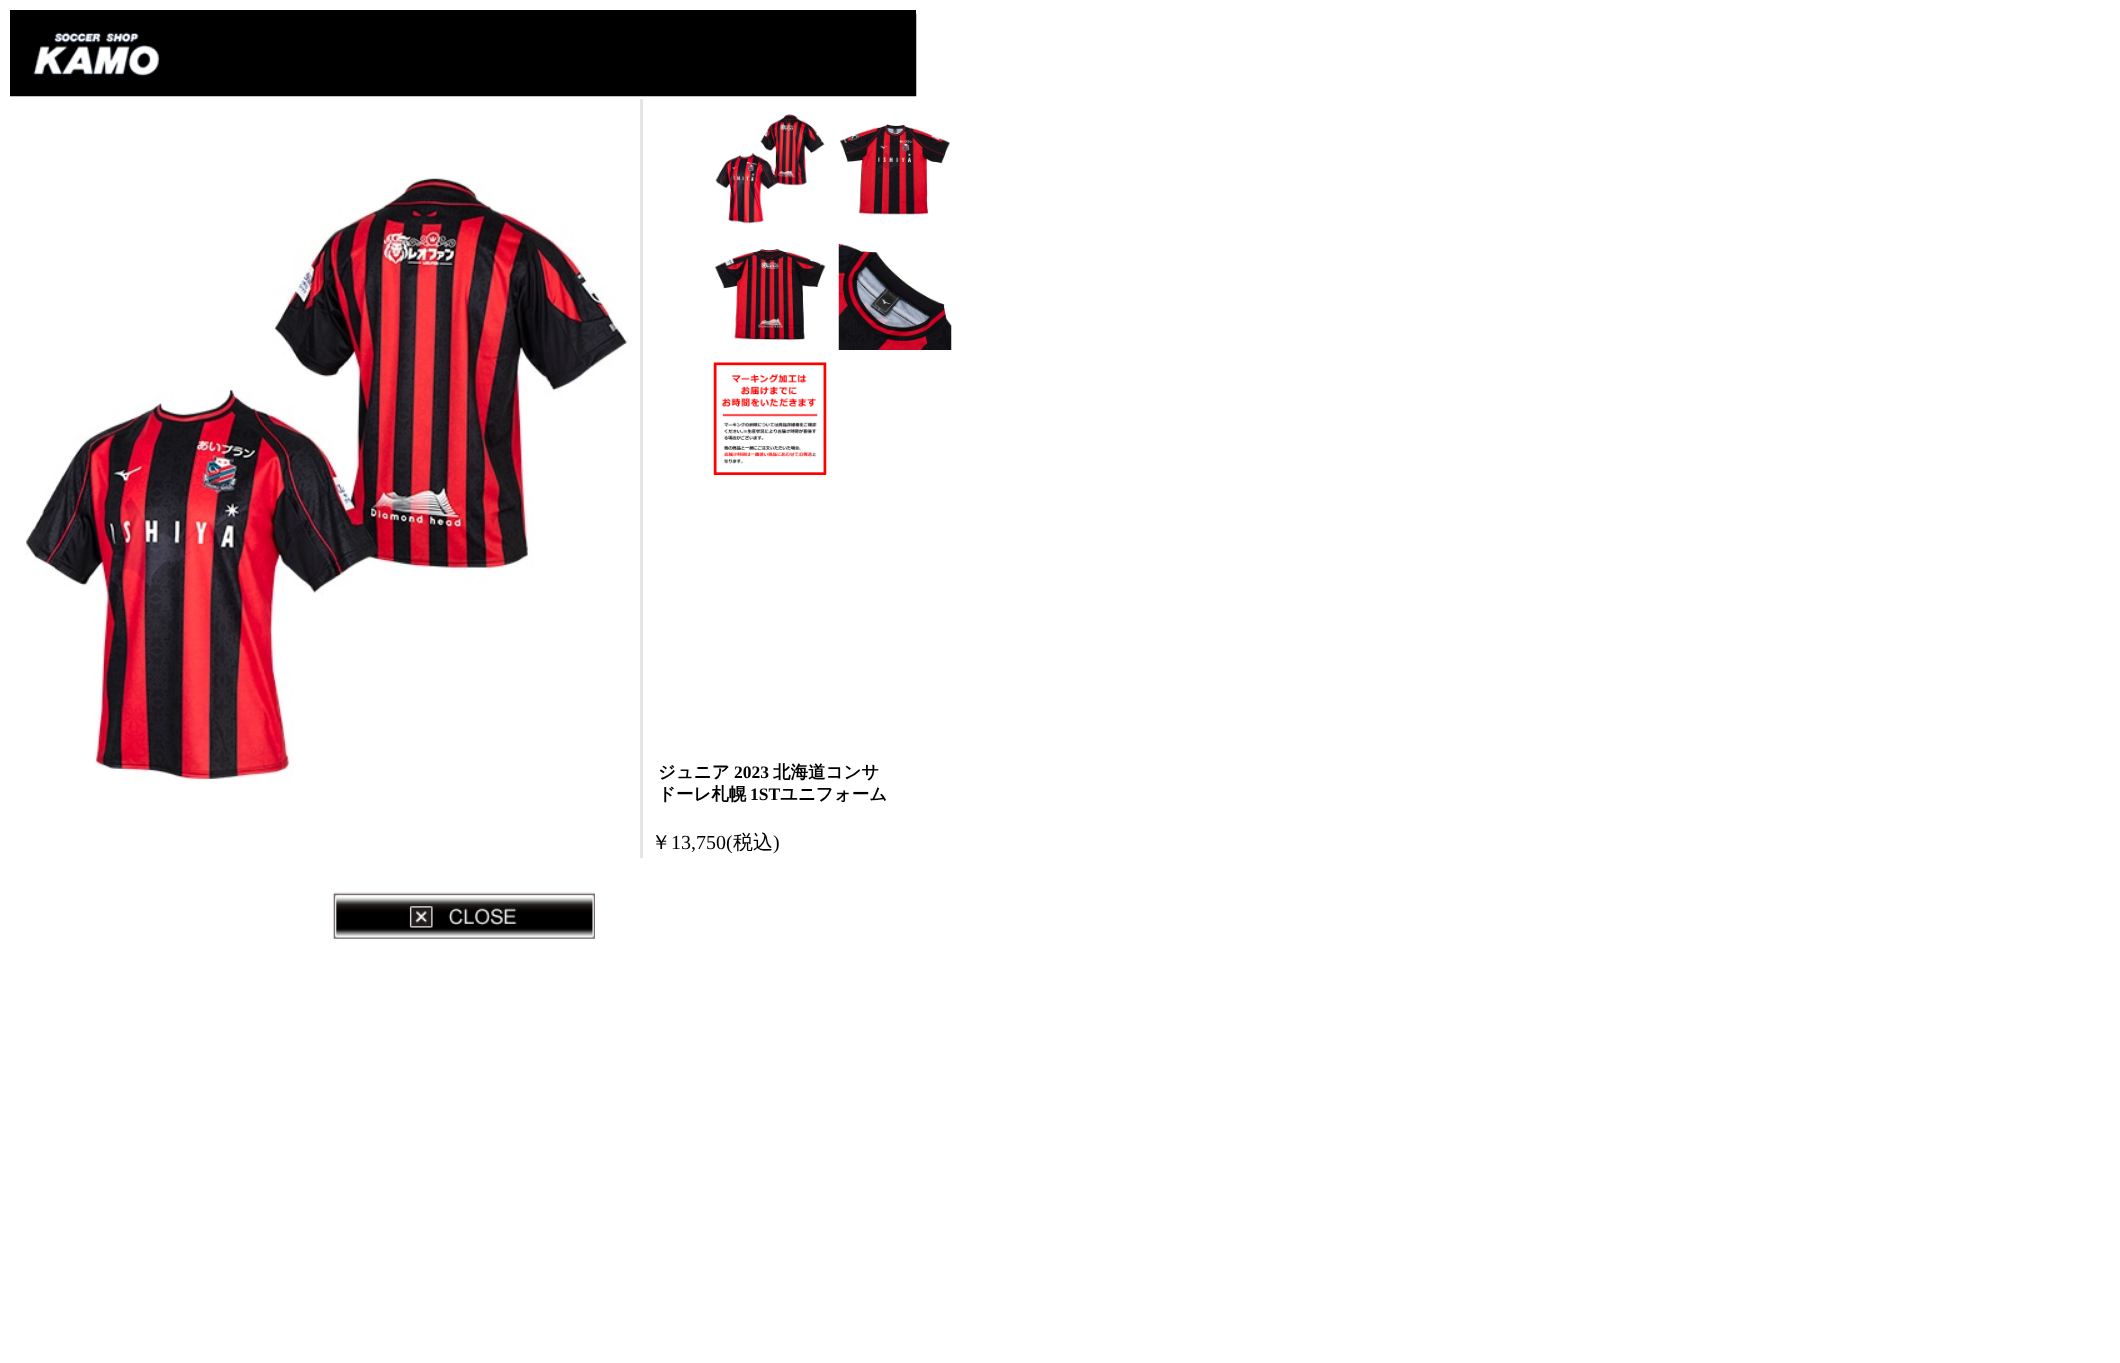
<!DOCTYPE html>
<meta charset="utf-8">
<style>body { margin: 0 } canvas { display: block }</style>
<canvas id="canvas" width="2120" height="1363"></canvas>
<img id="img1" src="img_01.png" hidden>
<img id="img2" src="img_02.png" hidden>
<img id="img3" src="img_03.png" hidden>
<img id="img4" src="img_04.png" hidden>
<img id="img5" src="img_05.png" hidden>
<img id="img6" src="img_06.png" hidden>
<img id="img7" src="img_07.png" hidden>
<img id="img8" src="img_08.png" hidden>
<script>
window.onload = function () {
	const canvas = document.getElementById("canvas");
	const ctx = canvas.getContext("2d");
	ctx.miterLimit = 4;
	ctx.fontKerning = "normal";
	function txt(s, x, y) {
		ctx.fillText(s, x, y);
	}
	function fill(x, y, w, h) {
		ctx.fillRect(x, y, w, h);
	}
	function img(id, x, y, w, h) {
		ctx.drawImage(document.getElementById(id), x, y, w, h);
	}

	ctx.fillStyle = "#FFFFFF";
	fill(0, 0, 2120, 1363);
	ctx.fillStyle = "#000000";
	fill(10, 10, 906, 4);
	img("img1", 10, 13, 907, 84);
	ctx.fillStyle = "#E5E5E5";
	fill(640, 99, 3, 759);
	img("img2", 25, 178, 608, 606);
	img("img3", 715, 114, 110, 110);
	img("img4", 839, 124, 111, 91);
	img("img5", 714, 248, 112, 93);
	img("img6", 838, 243, 114, 107);
	img("img7", 713, 362, 114, 113);
	img("img8", 332, 892, 263, 47);
	ctx.font = "bold 17.5px WenQuanYi Zen Hei";
	ctx.fillStyle = "#000000";
	txt("ジュニア", 658, 778);
	ctx.font = "bold 17.5px Liberation Serif";
	txt("2023", 734, 778);
	ctx.font = "bold 17.5px WenQuanYi Zen Hei";
	txt("北海道コンサ", 773, 778);
	txt("ドーレ札幌", 658, 800);
	ctx.font = "bold 17.5px Liberation Serif";
	txt("1ST", 750, 800);
	ctx.font = "bold 17.5px WenQuanYi Zen Hei";
	txt("ユニフォーム", 780, 800);
	ctx.font = "500 20px WenQuanYi Zen Hei";
	txt("￥", 651, 849);
	ctx.font = "20px Liberation Serif";
	txt("13,750(", 671, 849);
	ctx.font = "500 20px WenQuanYi Zen Hei";
	txt("税込", 733, 849);
	ctx.font = "20px Liberation Serif";
	txt(")", 773, 849);
};
</script>
